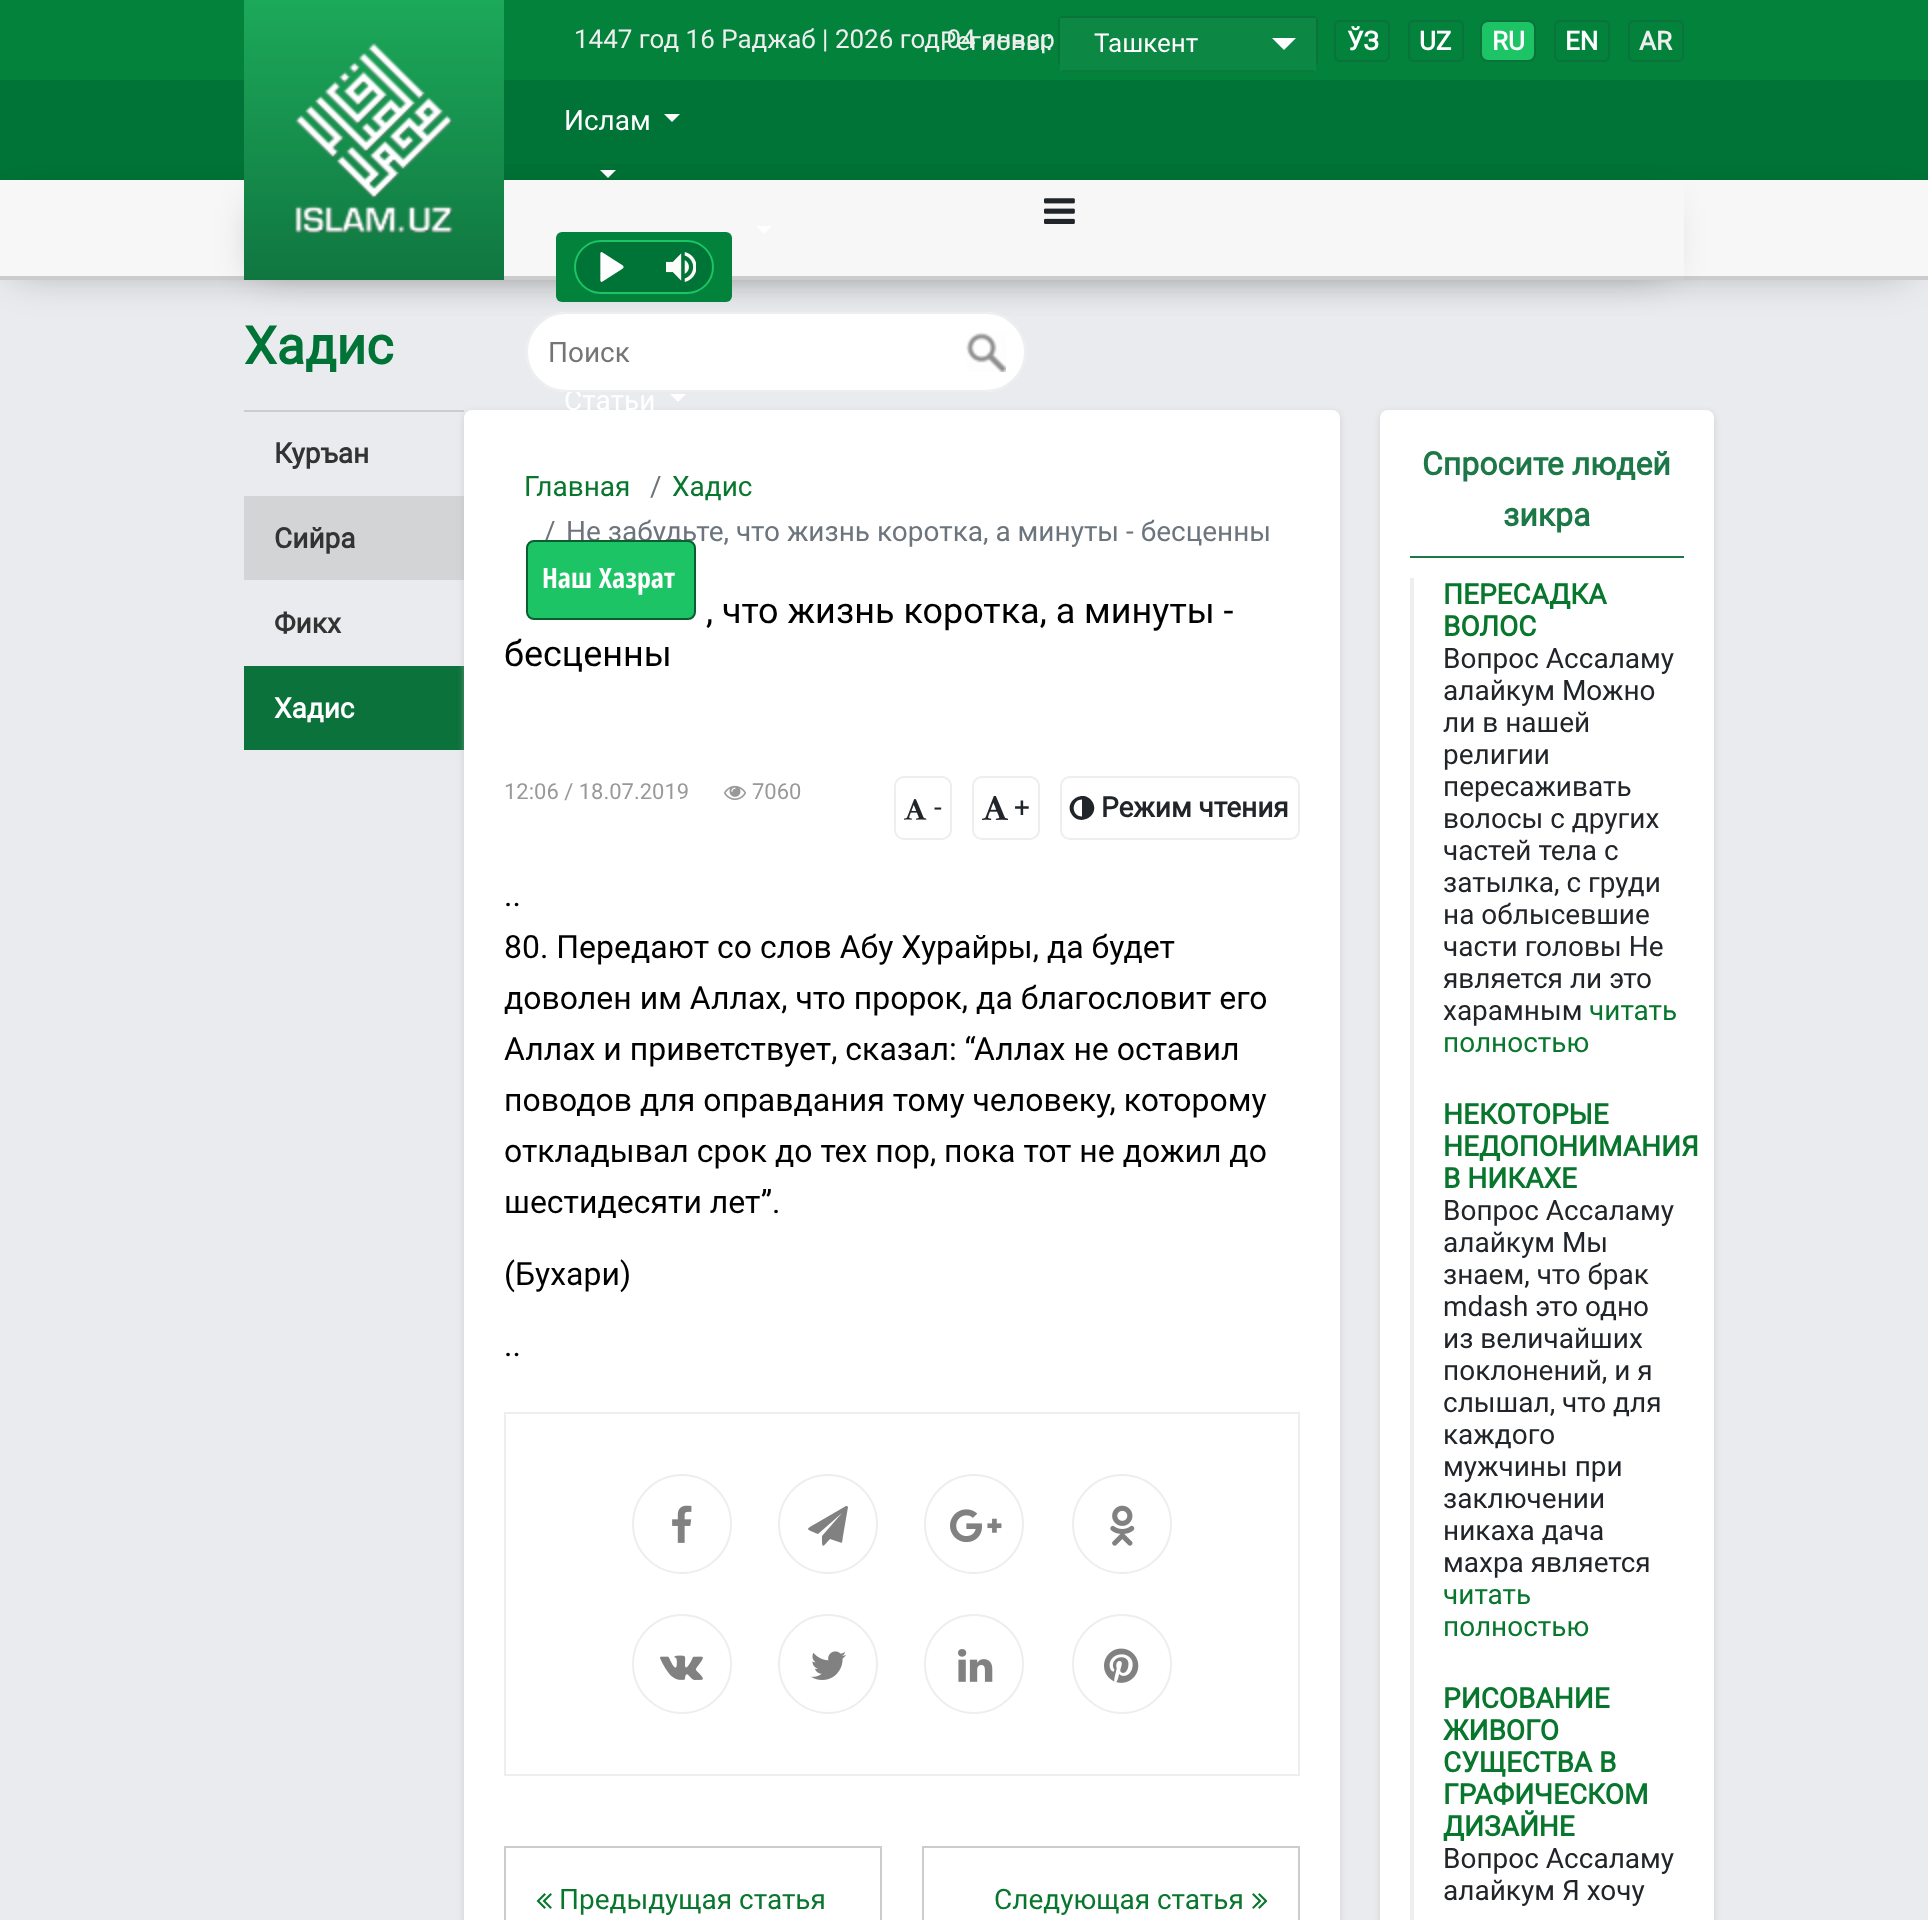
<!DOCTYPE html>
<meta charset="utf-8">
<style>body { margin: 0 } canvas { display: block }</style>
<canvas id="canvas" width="1928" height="1920"></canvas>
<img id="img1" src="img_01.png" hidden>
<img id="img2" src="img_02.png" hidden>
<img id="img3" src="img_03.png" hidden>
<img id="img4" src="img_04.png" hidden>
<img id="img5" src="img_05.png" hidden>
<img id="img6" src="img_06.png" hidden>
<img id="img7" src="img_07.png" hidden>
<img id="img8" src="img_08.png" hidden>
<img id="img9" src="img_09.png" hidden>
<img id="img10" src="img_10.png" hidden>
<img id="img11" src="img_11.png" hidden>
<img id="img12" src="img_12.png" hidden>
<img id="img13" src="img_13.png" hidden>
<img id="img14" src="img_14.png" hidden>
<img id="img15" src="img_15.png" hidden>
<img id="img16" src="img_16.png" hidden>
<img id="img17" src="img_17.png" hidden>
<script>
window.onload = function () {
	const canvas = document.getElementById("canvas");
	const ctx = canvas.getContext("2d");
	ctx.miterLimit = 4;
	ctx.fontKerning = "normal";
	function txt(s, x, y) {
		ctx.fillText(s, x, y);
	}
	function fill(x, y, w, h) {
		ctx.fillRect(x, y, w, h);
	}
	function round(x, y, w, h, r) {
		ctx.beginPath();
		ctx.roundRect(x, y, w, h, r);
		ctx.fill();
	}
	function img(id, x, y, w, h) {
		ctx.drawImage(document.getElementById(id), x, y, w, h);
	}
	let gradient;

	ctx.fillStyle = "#E9EBEE";
	fill(0, 0, 1928, 1920);
	ctx.fillStyle = "#02823B";
	fill(0, 0, 1928, 80);
	ctx.beginPath();
	ctx.roundRect(1059, 17, 258, 48, 4);
	ctx.strokeStyle = "#0B723B";
	ctx.lineWidth = 2;
	ctx.stroke();
	ctx.fillStyle = "#0C8744";
	fill(1060, 18, 256, 54);
	ctx.fillStyle = "#0B7A3D";
	ctx.beginPath();
	ctx.moveTo(1316, 72);
	ctx.lineTo(1060, 72);
	ctx.lineTo(1062, 70);
	ctx.lineTo(1314, 70);
	ctx.closePath();
	ctx.fill();
	ctx.fillStyle = "#FFFFFF";
	ctx.beginPath();
	ctx.moveTo(1272, 38);
	ctx.lineTo(1296, 38);
	ctx.lineTo(1284, 50);
	ctx.closePath();
	ctx.fill();
	ctx.beginPath();
	ctx.roundRect(1335, 21, 54, 40, 5);
	ctx.stroke();
	ctx.beginPath();
	ctx.roundRect(1409, 21, 54, 40, 5);
	ctx.stroke();
	ctx.fillStyle = "#1CC465";
	ctx.beginPath();
	ctx.roundRect(1481, 21, 54, 40, 7);
	ctx.fill();
	ctx.stroke();
	ctx.beginPath();
	ctx.roundRect(1555, 21, 54, 40, 5);
	ctx.stroke();
	ctx.beginPath();
	ctx.roundRect(1629, 21, 54, 40, 5);
	ctx.stroke();
	ctx.fillStyle = "#007336";
	fill(0, 80, 1928, 100);
	ctx.fillStyle = "rgba(0, 0, 0, 0.28)";
	ctx.filter = "blur(20px)";
	ctx.beginPath();
	ctx.rect(14, 208, 1892, 64);
	ctx.fill();
	ctx.filter = "none";
	ctx.fillStyle = "#F7F7F7";
	fill(0, 180, 1928, 96);
	ctx.fillStyle = "#CCCCCC";
	fill(0, 276, 1928, 4);
	ctx.fillStyle = "rgba(0, 0, 0, 0.28)";
	ctx.filter = "blur(20px)";
	ctx.beginPath();
	ctx.rect(258, 208, 1404, 64);
	ctx.fill();
	ctx.filter = "none";
	gradient = ctx.createLinearGradient(374, 0, 374, 280);
	gradient.addColorStop(0, "#1CA95A");
	gradient.addColorStop(1, "#107640");
	ctx.fillStyle = gradient;
	fill(244, 0, 260, 280);
	img("img1", 295, 43, 158, 192);
	ctx.fillStyle = "#FFFFFF";
	ctx.beginPath();
	ctx.moveTo(664, 114);
	ctx.lineTo(680, 114);
	ctx.lineTo(672, 122);
	ctx.closePath();
	ctx.fill();
	ctx.beginPath();
	ctx.moveTo(600, 170);
	ctx.lineTo(616, 170);
	ctx.lineTo(608, 178);
	ctx.closePath();
	ctx.fill();
	ctx.fillStyle = "#F7F7F7";
	fill(504, 180, 1180, 96);
	ctx.fillStyle = "#FFFFFF";
	ctx.beginPath();
	ctx.moveTo(756, 226);
	ctx.lineTo(772, 226);
	ctx.lineTo(764, 234);
	ctx.closePath();
	ctx.fill();
	ctx.beginPath();
	ctx.moveTo(670, 394);
	ctx.lineTo(686, 394);
	ctx.lineTo(678, 402);
	ctx.closePath();
	ctx.fill();
	ctx.fillStyle = "#CCCCCC";
	fill(504, 276, 1180, 4);
	img("img2", 1044, 198, 31, 26);
	ctx.fillStyle = "#02823B";
	round(556, 232, 176, 70, 6);
	ctx.fillStyle = "#007336";
	ctx.beginPath();
	ctx.roundRect(575, 241, 138, 52, 26);
	ctx.fill();
	ctx.strokeStyle = "#1CC465";
	ctx.stroke();
	img("img3", 600, 252, 24, 30);
	img("img4", 666, 252, 30, 30);
	ctx.fillStyle = "#FFFFFF";
	round(526, 312, 500, 80, 40);
	img("img5", 966, 332, 40, 40);
	ctx.fillStyle = "#CCCCCC";
	fill(244, 410, 220, 2);
	ctx.fillStyle = "#D2D4D6";
	fill(244, 496, 220, 84);
	ctx.fillStyle = "#0B723B";
	fill(244, 666, 220, 84);
	ctx.fillStyle = "rgba(180, 180, 180, 0.5)";
	ctx.filter = "blur(3px)";
	ctx.beginPath();
	ctx.roundRect(464, 412, 876, 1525, 8);
	ctx.fill();
	ctx.filter = "none";
	ctx.fillStyle = "#FFFFFF";
	round(464, 410, 876, 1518, 8);
	img("img6", 724, 785, 22, 15);
	ctx.beginPath();
	ctx.roundRect(895, 777, 56, 62, 9);
	ctx.strokeStyle = "#EEEEEE";
	ctx.stroke();
	img("img7", 904, 799, 23, 21);
	ctx.beginPath();
	ctx.roundRect(973, 777, 66, 62, 9);
	ctx.stroke();
	img("img8", 982, 796, 26, 24);
	ctx.beginPath();
	ctx.roundRect(1061, 777, 238, 62, 9);
	ctx.stroke();
	ctx.fillStyle = "#212529";
	ctx.beginPath();
	ctx.moveTo(1082, 816.5);
	ctx.lineTo(1082, 799.5);
	ctx.bezierCurveTo(1071, 799.5, 1071, 816.5, 1082, 816.5);
	ctx.closePath();
	ctx.moveTo(1092.5, 802);
	ctx.bezierCurveTo(1100.5, 815.5, 1079.5, 827.5, 1071.5, 814);
	ctx.bezierCurveTo(1063.5, 800.5, 1084.5, 788.5, 1092.5, 802);
	ctx.closePath();
	ctx.fill();
	ctx.strokeRect(505, 1413, 794, 362);
	ctx.beginPath();
	ctx.arc(682, 1524, 49, 0, Math.PI * 2);
	ctx.stroke();
	img("img9", 672, 1505, 20, 38);
	ctx.beginPath();
	ctx.arc(828, 1524, 49, 0, Math.PI * 2);
	ctx.stroke();
	ctx.fillStyle = "#818181";
	ctx.beginPath();
	ctx.moveTo(847, 1506);
	ctx.lineTo(848, 1507);
	ctx.lineTo(843, 1536);
	ctx.bezierCurveTo(842, 1542, 843, 1544, 839, 1542);
	ctx.lineTo(830, 1539);
	ctx.bezierCurveTo(822, 1548, 822, 1549, 822, 1536);
	ctx.lineTo(842, 1513);
	ctx.lineTo(818, 1534);
	ctx.bezierCurveTo(807, 1529, 804, 1530, 815, 1524);
	ctx.lineTo(846, 1506);
	ctx.closePath();
	ctx.fill();
	ctx.beginPath();
	ctx.arc(974, 1524, 49, 0, Math.PI * 2);
	ctx.stroke();
	img("img10", 950, 1509, 52, 34);
	ctx.beginPath();
	ctx.arc(1122, 1524, 49, 0, Math.PI * 2);
	ctx.stroke();
	img("img11", 1110, 1505, 25, 41);
	ctx.beginPath();
	ctx.arc(682, 1664, 49, 0, Math.PI * 2);
	ctx.stroke();
	img("img12", 660, 1655, 43, 25);
	ctx.beginPath();
	ctx.arc(828, 1664, 49, 0, Math.PI * 2);
	ctx.stroke();
	img("img13", 811, 1651, 35, 29);
	ctx.beginPath();
	ctx.arc(974, 1664, 49, 0, Math.PI * 2);
	ctx.stroke();
	img("img14", 958, 1649, 35, 33);
	ctx.beginPath();
	ctx.arc(1122, 1664, 49, 0, Math.PI * 2);
	ctx.stroke();
	img("img15", 1104, 1648, 35, 35);
	ctx.strokeStyle = "#CCCCCC";
	ctx.strokeRect(505, 1847, 376, 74);
	img("img16", 536, 1893, 16, 16);
	ctx.strokeRect(923, 1847, 376, 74);
	img("img17", 1252, 1893, 16, 16);
	ctx.fillStyle = "rgba(180, 180, 180, 0.5)";
	ctx.filter = "blur(3px)";
	ctx.beginPath();
	ctx.roundRect(1380, 412, 334, 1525, 8);
	ctx.fill();
	ctx.filter = "none";
	ctx.fillStyle = "#FFFFFF";
	round(1380, 410, 334, 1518, 8);
	ctx.fillStyle = "#1D7847";
	fill(1410, 556, 274, 2);
	ctx.fillStyle = "#EEEEEE";
	fill(1410, 578, 4, 1342);
	ctx.font = "26px Roboto";
	txt("1447 год 16 Раджаб | 2026 год 04 январ", 574, 48);
	txt("Регионы:", 940, 50);
	ctx.fillStyle = "#FFFFFF";
	txt("Ташкент", 1094, 52);
	ctx.font = "bold 26px Roboto";
	txt("ЎЗ", 1347, 50);
	txt("UZ", 1419, 50);
	txt("RU", 1492, 50);
	txt("EN", 1565, 50);
	ctx.fillStyle = "#EEEEEE";
	txt("AR", 1639, 50);
	ctx.font = "28px Roboto";
	ctx.fillStyle = "#FFFFFF";
	txt("Ислам", 564, 130);
	txt("Статьи", 564, 410);
	ctx.beginPath();
	ctx.roundRect(527, 313, 498, 78, 39);
	ctx.strokeStyle = "#EEEEEE";
	ctx.stroke();
	ctx.fillStyle = "#757575";
	txt("Поиск", 548, 362);
	ctx.font = "bold 52px Roboto";
	ctx.fillStyle = "#007336";
	txt("Хадис", 244, 364);
	ctx.font = "bold 28px Roboto";
	ctx.fillStyle = "#333333";
	txt("Куръан", 274, 463);
	txt("Сийра", 274, 548);
	txt("Фикх", 274, 633);
	ctx.fillStyle = "#FFFFFF";
	txt("Хадис", 274, 718);
	ctx.font = "28px Roboto";
	ctx.fillStyle = "#08762D";
	txt("Главная", 524, 496);
	ctx.fillStyle = "#6C757D";
	txt("/", 650, 496);
	ctx.fillStyle = "#08762D";
	txt("Хадис", 672, 496);
	ctx.fillStyle = "#6C757D";
	txt("/", 544, 541);
	txt("Не забудьте, что жизнь коротка, а минуты - бесценны", 566, 541);
	ctx.fillStyle = "#1CC465";
	ctx.beginPath();
	ctx.roundRect(527, 541, 168, 78, 7);
	ctx.fill();
	ctx.strokeStyle = "#095E30";
	ctx.stroke();
	ctx.font = "bold 28px Open Sans Condensed";
	ctx.fillStyle = "#FFFFFF";
	txt("Наш Хазрат", 542, 588);
	ctx.font = "36px Roboto";
	ctx.fillStyle = "#000000";
	txt(", что жизнь коротка, а минуты -", 706, 623);
	txt("бесценны", 504, 666);
	ctx.font = "22px Roboto";
	ctx.fillStyle = "#999999";
	txt("12:06 / 18.07.2019", 504, 799);
	txt("7060", 752, 799);
	ctx.font = "28px Roboto";
	ctx.fillStyle = "#212529";
	txt("-", 934, 817);
	txt("+", 1014, 817);
	ctx.font = "bold 28px Roboto";
	txt("Режим чтения", 1101, 817);
	ctx.font = "32px Roboto";
	ctx.fillStyle = "#000000";
	txt("..", 504, 906);
	txt("80. Передают со слов Абу Хурайры, да будет", 504, 958);
	txt("доволен им Аллах, что пророк, да благословит его", 504, 1009);
	txt("Аллах и приветствует, сказал: “Аллах не оставил", 504, 1060);
	txt("поводов для оправдания тому человеку, которому", 504, 1111);
	txt("откладывал срок до тех пор, пока тот не дожил до", 504, 1162);
	txt("шестидесяти лет”.", 504, 1213);
	txt("(Бухари)", 504, 1285);
	txt("..", 504, 1356);
	ctx.font = "28px Roboto";
	ctx.fillStyle = "#08762D";
	txt("Предыдущая статья", 559, 1909);
	txt("Следующая статья", 994, 1909);
	ctx.font = "bold 32px Roboto";
	ctx.fillStyle = "#1D7847";
	txt("Спросите людей", 1422, 475);
	txt("зикра", 1503, 526);
	ctx.font = "bold 28px Roboto";
	ctx.fillStyle = "#08762D";
	txt("ПЕРЕСАДКА", 1443, 604);
	txt("ВОЛОС", 1443, 636);
	ctx.font = "28px Roboto";
	ctx.fillStyle = "#212529";
	txt("Вопрос Ассаламу", 1443, 668);
	txt("алайкум Можно", 1443, 700);
	txt("ли в нашей", 1443, 732);
	txt("религии", 1443, 764);
	txt("пересаживать", 1443, 796);
	txt("волосы с других", 1443, 828);
	txt("частей тела с", 1443, 860);
	txt("затылка, с груди", 1443, 892);
	txt("на облысевшие", 1443, 924);
	txt("части головы Не", 1443, 956);
	txt("является ли это", 1443, 988);
	txt("харамным", 1443, 1020);
	ctx.fillStyle = "#08762D";
	txt("читать", 1589, 1020);
	txt("полностью", 1443, 1052);
	ctx.font = "bold 28px Roboto";
	txt("НЕКОТОРЫЕ", 1443, 1124);
	txt("НЕДОПОНИМАНИЯ", 1443, 1156);
	txt("В НИКАХЕ", 1443, 1188);
	ctx.font = "28px Roboto";
	ctx.fillStyle = "#212529";
	txt("Вопрос Ассаламу", 1443, 1220);
	txt("алайкум Мы", 1443, 1252);
	txt("знаем, что брак", 1443, 1284);
	txt("mdash это одно", 1443, 1316);
	txt("из величайших", 1443, 1348);
	txt("поклонений, и я", 1443, 1380);
	txt("слышал, что для", 1443, 1412);
	txt("каждого", 1443, 1444);
	txt("мужчины при", 1443, 1476);
	txt("заключении", 1443, 1508);
	txt("никаха дача", 1443, 1540);
	txt("махра является", 1443, 1572);
	ctx.fillStyle = "#08762D";
	txt("читать", 1443, 1604);
	txt("полностью", 1443, 1636);
	ctx.font = "bold 28px Roboto";
	txt("РИСОВАНИЕ", 1443, 1708);
	txt("ЖИВОГО", 1443, 1740);
	txt("СУЩЕСТВА В", 1443, 1772);
	txt("ГРАФИЧЕСКОМ", 1443, 1804);
	txt("ДИЗАЙНЕ", 1443, 1836);
	ctx.font = "28px Roboto";
	ctx.fillStyle = "#212529";
	txt("Вопрос Ассаламу", 1443, 1868);
	txt("алайкум Я хочу", 1443, 1900);
};
</script>
